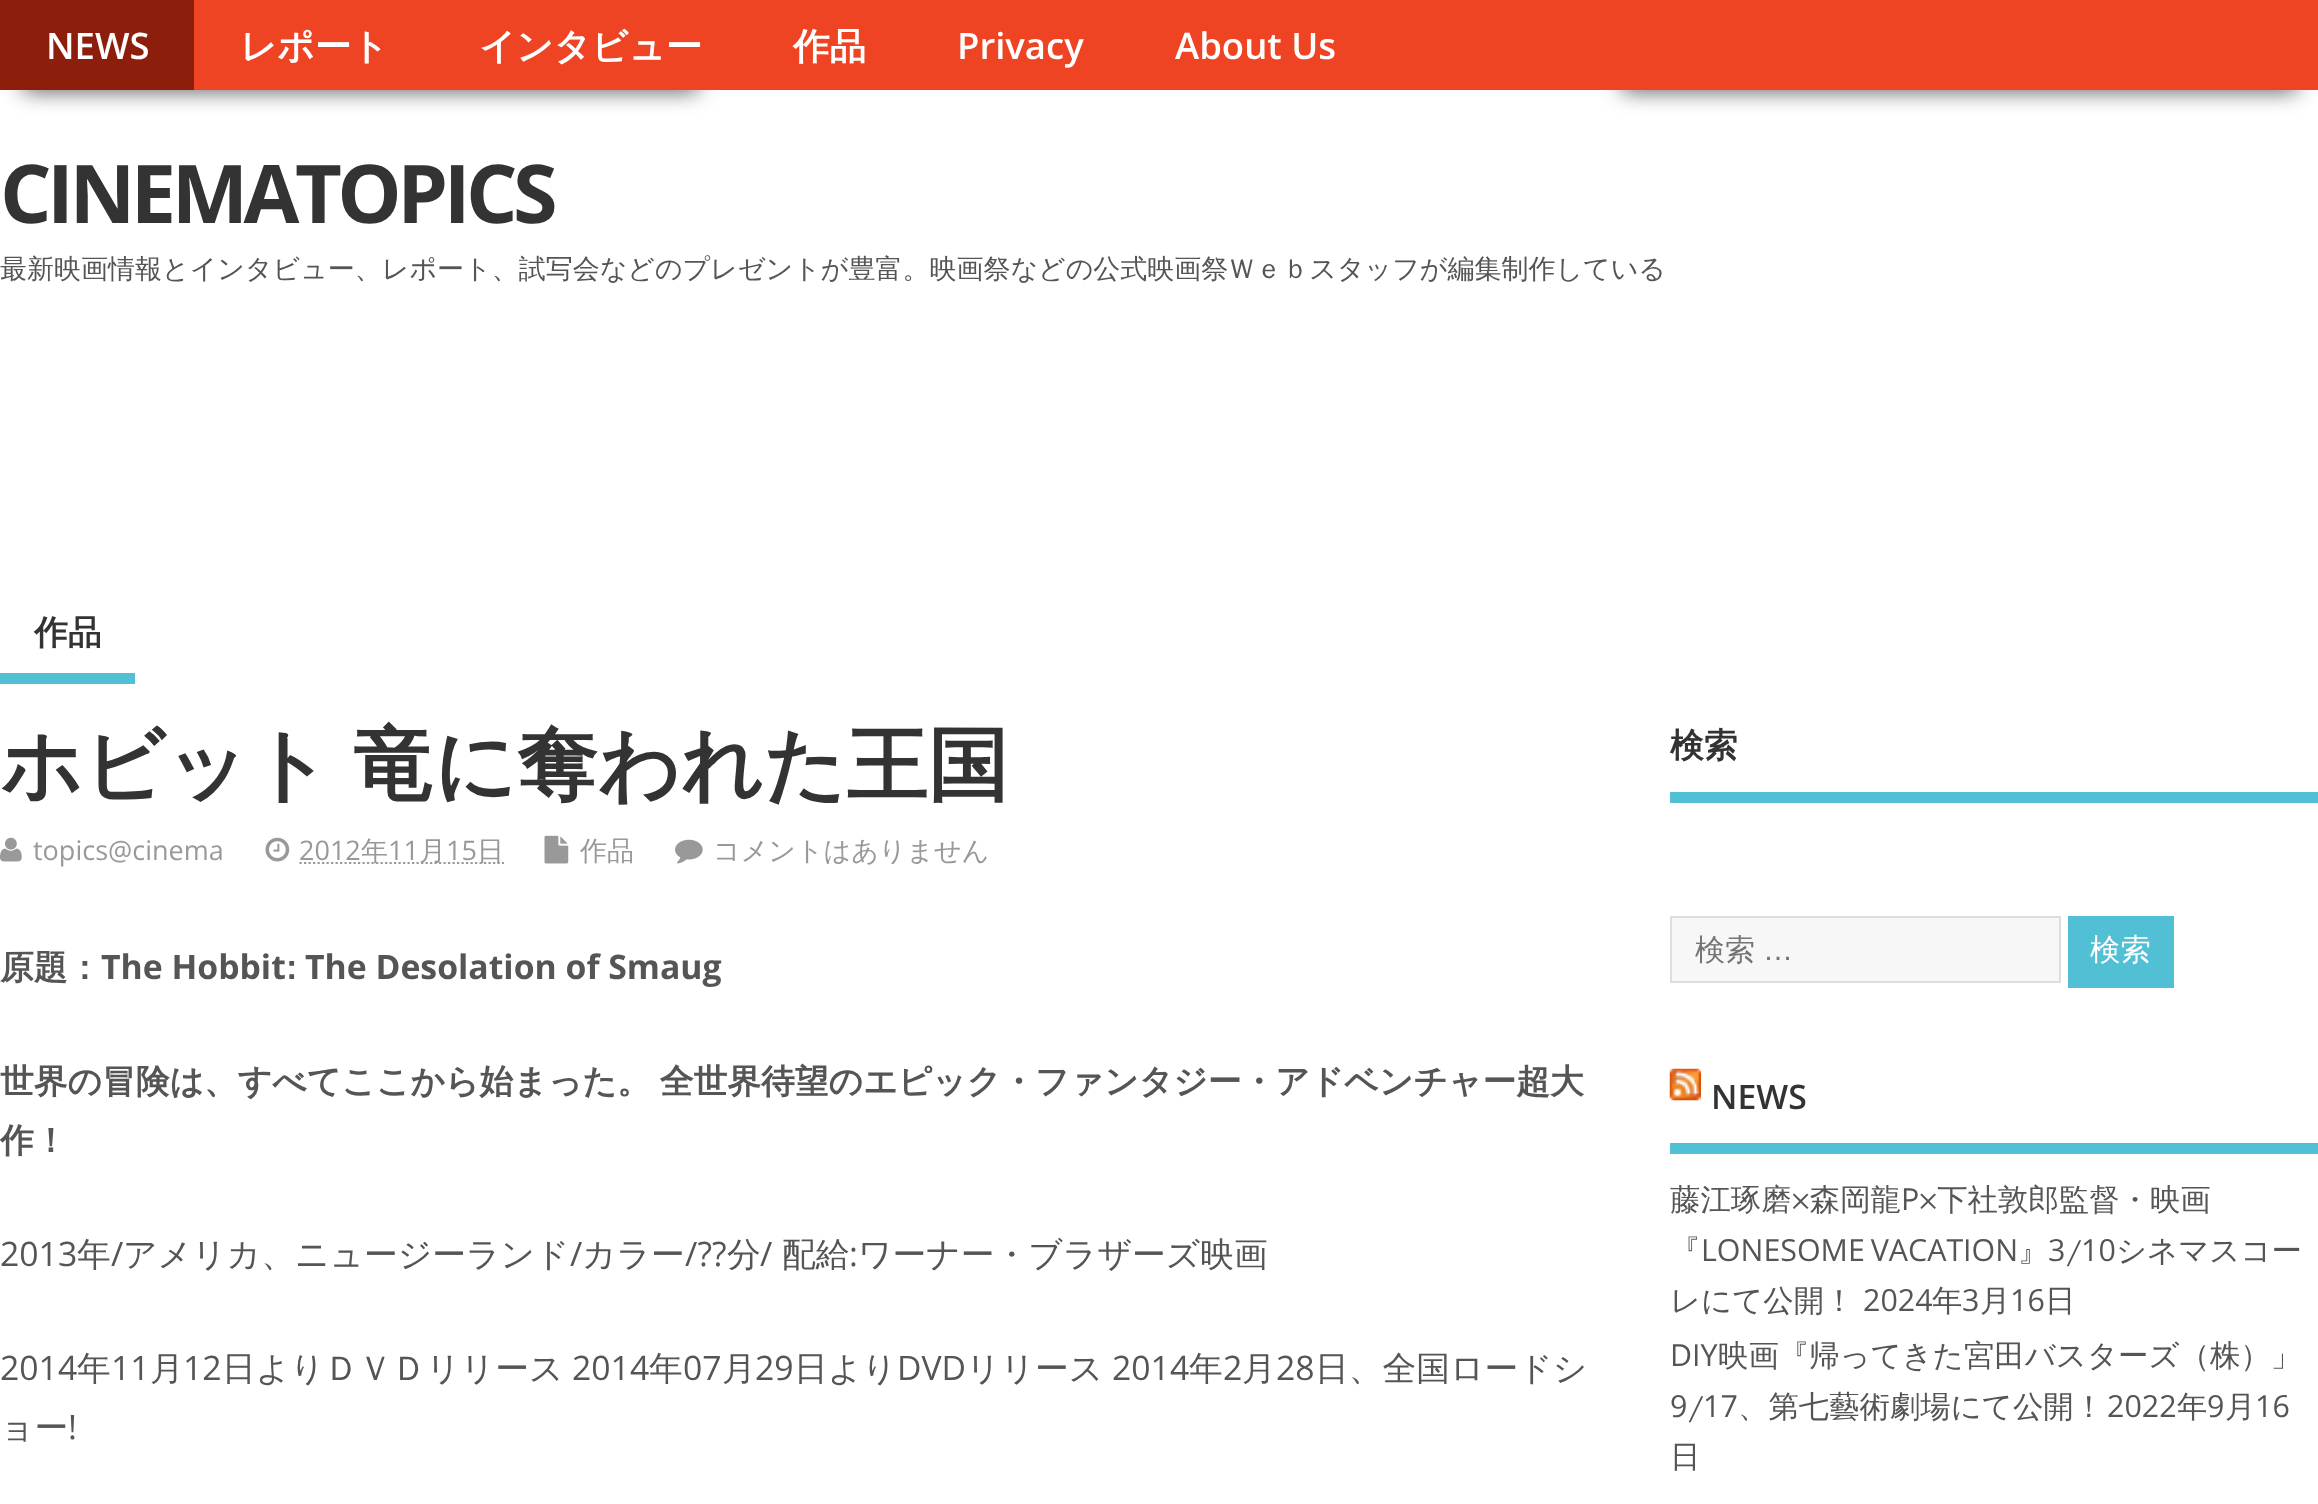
<!DOCTYPE html>
<meta charset="utf-8">
<style>body { margin: 0 } canvas { display: block }</style>
<canvas id="canvas" width="2318" height="1504"></canvas>
<img id="img1" src="img_01.png" hidden>
<img id="img2" src="img_02.png" hidden>
<img id="img3" src="img_03.png" hidden>
<img id="img4" src="img_04.png" hidden>
<img id="img5" src="img_05.png" hidden>
<script>
window.onload = function () {
	const canvas = document.getElementById("canvas");
	const ctx = canvas.getContext("2d");
	ctx.miterLimit = 4;
	ctx.fontKerning = "normal";
	function txt(s, x, y) {
		ctx.fillText(s, x, y);
	}
	function fill(x, y, w, h) {
		ctx.fillRect(x, y, w, h);
	}
	function img(id, x, y, w, h) {
		ctx.drawImage(document.getElementById(id), x, y, w, h);
	}

	ctx.fillStyle = "#FFFFFF";
	fill(0, 0, 2318, 1504);
	ctx.fillStyle = "rgba(0, 0, 0, 0.75)";
	ctx.filter = "blur(11px)";
	ctx.beginPath();
	ctx.rect(23, 72, 675, 18);
	ctx.fill();
	ctx.filter = "none";
	ctx.filter = "blur(11px)";
	ctx.beginPath();
	ctx.rect(1622, 72, 675, 18);
	ctx.fill();
	ctx.filter = "none";
	ctx.fillStyle = "#EF4423";
	fill(194, 0, 2124, 90);
	ctx.fillStyle = "#8E1E0C";
	fill(0, 0, 194, 90);
	ctx.fillStyle = "#52C0D4";
	fill(0, 673, 135, 11);
	img("img1", 0, 837, 22, 25);
	img("img2", 265, 837, 25, 25);
	ctx.beginPath();
	ctx.moveTo(299.5, 863);
	ctx.lineTo(504, 863);
	ctx.strokeStyle = "#999999";
	ctx.lineWidth = 2.2;
	ctx.setLineDash([2.25, 2.25]);
	ctx.stroke();
	img("img3", 544, 835, 25, 29);
	img("img4", 675, 839, 28, 25);
	fill(1670, 792, 648, 11);
	ctx.fillStyle = "#F7F7F7";
	ctx.beginPath();
	ctx.rect(1671, 917, 389, 65);
	ctx.fill();
	ctx.strokeStyle = "#DDDDDD";
	ctx.lineWidth = 2;
	ctx.setLineDash([]);
	ctx.stroke();
	ctx.fillStyle = "#52C0D4";
	fill(2068, 916, 106, 72);
	fill(1670, 1143, 648, 11);
	img("img5", 1669, 1068, 32, 33);
	ctx.font = "600 36.5px Open Sans";
	ctx.fillStyle = "#FFFFFF";
	txt("NEWS", 46, 59);
	ctx.font = "bold 36.5px WenQuanYi Zen Hei";
	txt("レポート", 240, 59);
	txt("インタビュー", 479, 59);
	txt("作品", 793, 59);
	ctx.font = "600 36.5px Open Sans";
	txt("Privacy", 957, 59);
	txt("About Us", 1175, 59);
	ctx.letterSpacing = "-4.5px";
	ctx.font = "bold 81px Open Sans";
	ctx.fillStyle = "#333333";
	txt("CINEMATOPICS", 0, 223);
	ctx.letterSpacing = "0px";
	ctx.font = "500 27px WenQuanYi Zen Hei";
	ctx.fillStyle = "#555555";
	txt("最新映画情報とインタビュー、レポート、試写会などのプレゼントが豊富。映画祭などの公式映画祭Ｗｅｂスタッフが編集制作している", 0, 278);
	ctx.font = "bold 33.75px WenQuanYi Zen Hei";
	ctx.fillStyle = "#333333";
	txt("作品", 34, 644);
	ctx.wordSpacing = "-3px";
	ctx.font = "bold 81px WenQuanYi Zen Hei";
	txt("ホビット 竜に奪われた王国", 0, 793);
	ctx.wordSpacing = "0px";
	ctx.font = "27px Open Sans";
	ctx.fillStyle = "#999999";
	txt("topics@cinema", 33, 860);
	txt("2012", 299, 860);
	ctx.font = "500 27px WenQuanYi Zen Hei";
	txt("年", 361, 860);
	ctx.font = "27px Open Sans";
	txt("11", 388, 860);
	ctx.font = "500 27px WenQuanYi Zen Hei";
	txt("月", 419, 860);
	ctx.font = "27px Open Sans";
	txt("15", 446, 860);
	ctx.font = "500 27px WenQuanYi Zen Hei";
	txt("日", 477, 860);
	txt("作品", 580, 860);
	txt("コメントはありません", 713, 860);
	ctx.font = "bold 33.75px WenQuanYi Zen Hei";
	ctx.fillStyle = "#555555";
	txt("原題：", 0, 979);
	ctx.font = "bold 33.75px Open Sans";
	txt("The Hobbit", 101, 979);
	ctx.font = "bold 33.75px WenQuanYi Zen Hei";
	txt(":", 286, 979);
	ctx.font = "bold 33.75px Open Sans";
	txt("The Desolation of Smaug", 305, 979);
	ctx.wordSpacing = "-1px";
	ctx.font = "bold 33.75px WenQuanYi Zen Hei";
	txt("世界の冒険は、すべてここから始まった。 全世界待望のエピック・ファンタジー・アドベンチャー超大", 0, 1093);
	ctx.wordSpacing = "0px";
	txt("作！", 0, 1152);
	ctx.font = "33.75px Open Sans";
	txt("2013", 0, 1266);
	ctx.font = "500 33.75px WenQuanYi Zen Hei";
	txt("年", 77, 1266);
	ctx.font = "33.75px Open Sans";
	txt("/", 111, 1266);
	ctx.font = "500 33.75px WenQuanYi Zen Hei";
	txt("アメリカ、ニュージーランド", 123, 1266);
	ctx.font = "33.75px Open Sans";
	txt("/", 570, 1266);
	ctx.font = "500 33.75px WenQuanYi Zen Hei";
	txt("カラー", 582, 1266);
	ctx.font = "33.75px Open Sans";
	txt("/??", 685, 1266);
	ctx.font = "500 33.75px WenQuanYi Zen Hei";
	txt("分", 727, 1266);
	ctx.font = "33.75px Open Sans";
	txt("/", 760, 1266);
	ctx.font = "500 33.75px WenQuanYi Zen Hei";
	txt("配給", 782, 1266);
	ctx.font = "33.75px Open Sans";
	txt(":", 849, 1266);
	ctx.font = "500 33.75px WenQuanYi Zen Hei";
	txt("ワーナー・ブラザーズ映画", 858, 1266);
	ctx.font = "33.75px Open Sans";
	txt("2014", 0, 1380);
	ctx.font = "500 33.75px WenQuanYi Zen Hei";
	txt("年", 77, 1380);
	ctx.font = "33.75px Open Sans";
	txt("11", 111, 1380);
	ctx.font = "500 33.75px WenQuanYi Zen Hei";
	txt("月", 150, 1380);
	ctx.font = "33.75px Open Sans";
	txt("12", 183, 1380);
	ctx.font = "500 33.75px WenQuanYi Zen Hei";
	txt("日よりＤＶＤリリース", 222, 1380);
	ctx.font = "33.75px Open Sans";
	txt("2014", 572, 1380);
	ctx.font = "500 33.75px WenQuanYi Zen Hei";
	txt("年", 649, 1380);
	ctx.font = "33.75px Open Sans";
	txt("07", 683, 1380);
	ctx.font = "500 33.75px WenQuanYi Zen Hei";
	txt("月", 722, 1380);
	ctx.font = "33.75px Open Sans";
	txt("29", 755, 1380);
	ctx.font = "500 33.75px WenQuanYi Zen Hei";
	txt("日より", 794, 1380);
	ctx.font = "33.75px Open Sans";
	txt("DVD", 897, 1380);
	ctx.font = "500 33.75px WenQuanYi Zen Hei";
	txt("リリース", 966, 1380);
	ctx.font = "33.75px Open Sans";
	txt("2014", 1112, 1380);
	ctx.font = "500 33.75px WenQuanYi Zen Hei";
	txt("年", 1189, 1380);
	ctx.font = "33.75px Open Sans";
	txt("2", 1223, 1380);
	ctx.font = "500 33.75px WenQuanYi Zen Hei";
	txt("月", 1242, 1380);
	ctx.font = "33.75px Open Sans";
	txt("28", 1276, 1380);
	ctx.font = "500 33.75px WenQuanYi Zen Hei";
	txt("日、全国ロードシ", 1315, 1380);
	txt("ョー", 0, 1439);
	ctx.font = "33.75px Open Sans";
	txt("!", 68, 1439);
	ctx.font = "bold 33.75px WenQuanYi Zen Hei";
	ctx.fillStyle = "#333333";
	txt("検索", 1670, 757);
	ctx.font = "500 30px WenQuanYi Zen Hei";
	ctx.fillStyle = "#757575";
	txt("検索", 1695, 960);
	ctx.font = "30px Liberation Sans";
	txt("…", 1763, 960);
	ctx.font = "500 30.4px WenQuanYi Zen Hei";
	ctx.fillStyle = "#FFFFFF";
	txt("検索", 2090, 960);
	ctx.font = "600 33.75px Open Sans";
	ctx.fillStyle = "#333333";
	txt("NEWS", 1711, 1109);
	ctx.font = "500 30.4px WenQuanYi Zen Hei";
	ctx.fillStyle = "#555555";
	txt("藤江琢磨×森岡龍", 1670, 1210);
	ctx.font = "30.4px Open Sans";
	txt("P", 1901, 1210);
	ctx.font = "500 30.4px WenQuanYi Zen Hei";
	txt("×下社敦郎監督・映画", 1919, 1210);
	txt("『", 1670, 1261);
	ctx.wordSpacing = "-2px";
	ctx.font = "30.4px Open Sans";
	txt("LONESOME VACATION", 1701, 1261);
	ctx.wordSpacing = "0px";
	ctx.font = "500 30.4px WenQuanYi Zen Hei";
	txt("』", 2018, 1261);
	ctx.font = "30.4px Open Sans";
	txt("3", 2048, 1261);
	ctx.font = "500 30.4px WenQuanYi Zen Hei";
	txt("/", 2066, 1261);
	ctx.font = "30.4px Open Sans";
	txt("10", 2081, 1261);
	ctx.font = "500 30.4px WenQuanYi Zen Hei";
	txt("シネマスコー", 2116, 1261);
	txt("レにて公開！", 1670, 1311);
	ctx.font = "30.4px Open Sans";
	txt("2024", 1863, 1311);
	ctx.font = "500 30.4px WenQuanYi Zen Hei";
	txt("年", 1932, 1311);
	ctx.font = "30.4px Open Sans";
	txt("3", 1962, 1311);
	ctx.font = "500 30.4px WenQuanYi Zen Hei";
	txt("月", 1980, 1311);
	ctx.font = "30.4px Open Sans";
	txt("16", 2010, 1311);
	ctx.font = "500 30.4px WenQuanYi Zen Hei";
	txt("日", 2045, 1311);
	ctx.font = "30.4px Open Sans";
	txt("DIY", 1670, 1366);
	ctx.font = "500 30.4px WenQuanYi Zen Hei";
	txt("映画『帰ってきた宮田バスターズ（株）」", 1718, 1366);
	ctx.font = "30.4px Open Sans";
	txt("9", 1670, 1417);
	ctx.font = "500 30.4px WenQuanYi Zen Hei";
	txt("/", 1688, 1417);
	ctx.font = "30.4px Open Sans";
	txt("17", 1703, 1417);
	ctx.font = "500 30.4px WenQuanYi Zen Hei";
	txt("、第七藝術劇場にて公開！", 1738, 1417);
	ctx.font = "30.4px Open Sans";
	txt("2022", 2107, 1417);
	ctx.font = "500 30.4px WenQuanYi Zen Hei";
	txt("年", 2177, 1417);
	ctx.font = "30.4px Open Sans";
	txt("9", 2207, 1417);
	ctx.font = "500 30.4px WenQuanYi Zen Hei";
	txt("月", 2225, 1417);
	ctx.font = "30.4px Open Sans";
	txt("16", 2255, 1417);
	ctx.font = "500 30.4px WenQuanYi Zen Hei";
	txt("日", 1670, 1467);
};
</script>
